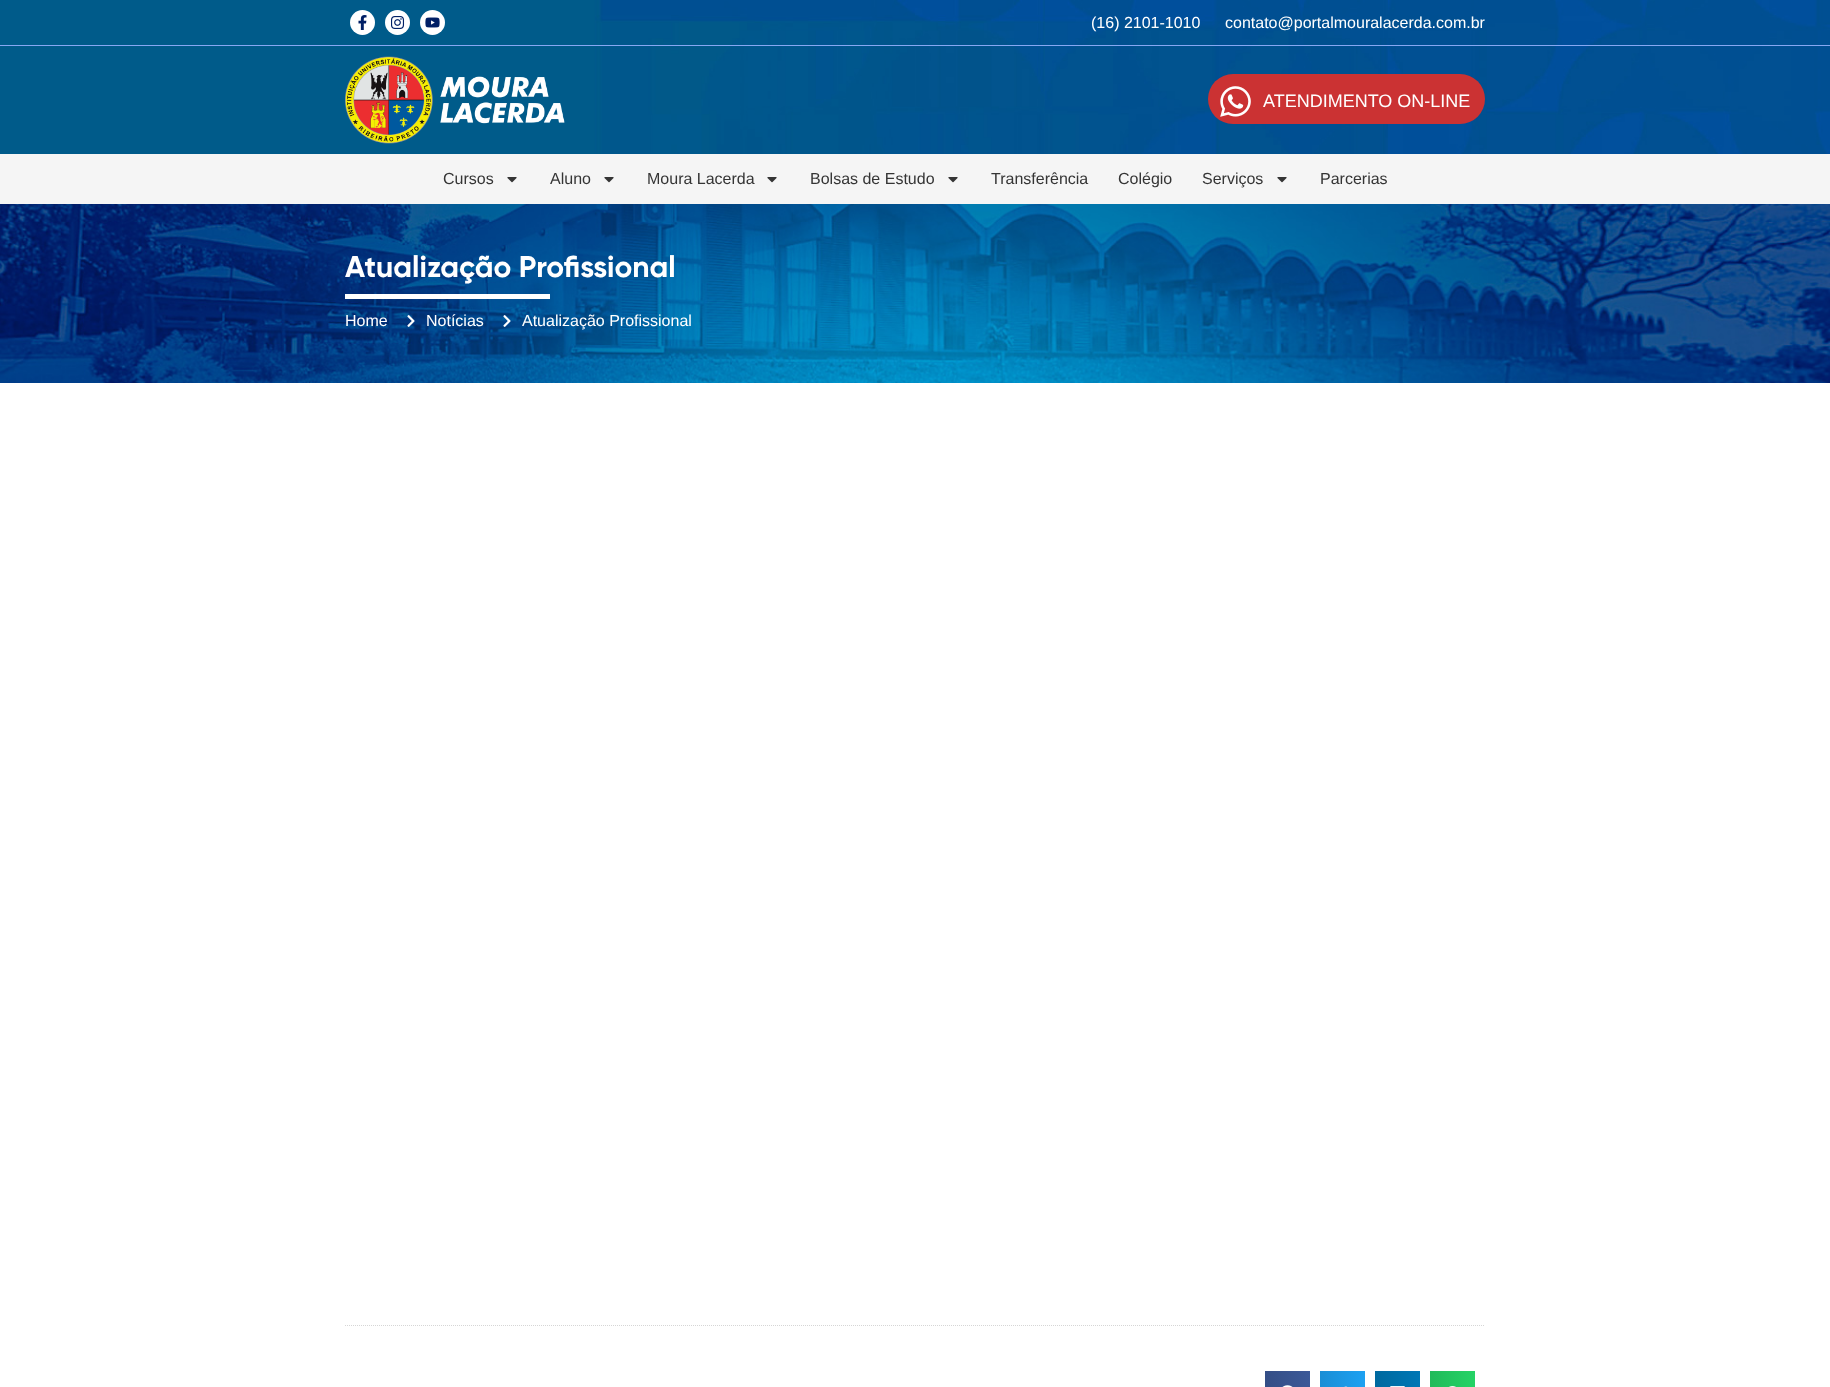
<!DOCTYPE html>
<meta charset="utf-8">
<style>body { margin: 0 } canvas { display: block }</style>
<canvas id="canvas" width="1830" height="1387"></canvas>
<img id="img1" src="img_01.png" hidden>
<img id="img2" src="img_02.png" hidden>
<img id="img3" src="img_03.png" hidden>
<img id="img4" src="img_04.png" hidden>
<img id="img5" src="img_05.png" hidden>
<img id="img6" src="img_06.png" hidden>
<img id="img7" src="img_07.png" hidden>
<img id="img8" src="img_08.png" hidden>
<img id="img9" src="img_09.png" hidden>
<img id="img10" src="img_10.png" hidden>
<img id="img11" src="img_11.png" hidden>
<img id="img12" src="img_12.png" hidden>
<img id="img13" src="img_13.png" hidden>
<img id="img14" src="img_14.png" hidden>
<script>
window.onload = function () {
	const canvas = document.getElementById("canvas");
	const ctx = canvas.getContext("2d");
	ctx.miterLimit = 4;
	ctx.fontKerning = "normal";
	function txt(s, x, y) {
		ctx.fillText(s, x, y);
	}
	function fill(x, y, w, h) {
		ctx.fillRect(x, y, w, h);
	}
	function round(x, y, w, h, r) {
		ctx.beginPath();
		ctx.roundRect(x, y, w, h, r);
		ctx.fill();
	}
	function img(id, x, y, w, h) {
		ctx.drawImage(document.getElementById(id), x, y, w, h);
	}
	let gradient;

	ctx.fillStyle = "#FFFFFF";
	fill(0, 0, 1830, 1387);
	img("img1", 0, 0, 1830, 154);
	ctx.beginPath();
	ctx.arc(362.5, 22.5, 12.5, 0, Math.PI * 2);
	ctx.fill();
	img("img2", 358, 15, 9, 15);
	ctx.beginPath();
	ctx.arc(397.5, 22.5, 12.5, 0, Math.PI * 2);
	ctx.fill();
	img("img3", 391, 16, 14, 13);
	ctx.beginPath();
	ctx.arc(432.5, 22.5, 12.5, 0, Math.PI * 2);
	ctx.fill();
	img("img4", 425, 17, 15, 11);
	ctx.fillStyle = "#87A8F3";
	fill(0, 45, 1830, 1);
	img("img5", 345, 56, 220, 88);
	ctx.fillStyle = "#CB3233";
	round(1208, 74, 277, 50, 25);
	img("img6", 1220, 86, 31, 31);
	ctx.fillStyle = "#F5F5F5";
	fill(0, 154, 1830, 50);
	img("img7", 507, 177, 10, 6);
	img("img7", 604, 177, 10, 6);
	img("img7", 767, 177, 10, 6);
	img("img7", 948, 177, 10, 6);
	img("img7", 1277, 177, 10, 6);
	img("img8", 0, 204, 1830, 179);
	ctx.fillStyle = "#FFFFFF";
	fill(345, 294, 205, 5);
	img("img9", 407, 315, 8, 12);
	img("img10", 503, 315, 8, 12);
	ctx.beginPath();
	ctx.moveTo(345, 1325.5);
	ctx.lineTo(1485, 1325.5);
	ctx.strokeStyle = "#D6D6D6";
	ctx.setLineDash([1, 1]);
	ctx.stroke();
	gradient = ctx.createLinearGradient(1265, 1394, 1310, 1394);
	gradient.addColorStop(0, "#344E86");
	gradient.addColorStop(1, "#3B5998");
	ctx.fillStyle = gradient;
	fill(1265, 1371, 45, 16);
	img("img11", 1282, 1385, 11, 2);
	gradient = ctx.createLinearGradient(1320, 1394, 1365, 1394);
	gradient.addColorStop(0, "#1A8ED5");
	gradient.addColorStop(1, "#1DA1F2");
	ctx.fillStyle = gradient;
	fill(1320, 1371, 45, 16);
	img("img12", 1344, 1386, 4, 1);
	gradient = ctx.createLinearGradient(1375, 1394, 1420, 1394);
	gradient.addColorStop(0, "#00699F");
	gradient.addColorStop(1, "#0077B5");
	ctx.fillStyle = gradient;
	fill(1375, 1371, 45, 16);
	img("img13", 1390, 1386, 15, 1);
	gradient = ctx.createLinearGradient(1430, 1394, 1475, 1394);
	gradient.addColorStop(0, "#21BA5A");
	gradient.addColorStop(1, "#25D366");
	ctx.fillStyle = gradient;
	fill(1430, 1371, 45, 16);
	img("img14", 1449, 1386, 7, 1);
	ctx.font = "16px Liberation Sans";
	ctx.fillStyle = "#FFFFFF";
	txt("(16) 2101-1010", 1091, 28);
	txt("contato@portalmouralacerda.com.br", 1225, 28);
	ctx.font = "18px Liberation Sans";
	txt("ATENDIMENTO ON-LINE", 1263, 107);
	ctx.font = "16px Liberation Sans";
	ctx.fillStyle = "#353535";
	txt("Cursos", 443, 184);
	txt("Aluno", 550, 184);
	txt("Moura Lacerda", 647, 184);
	txt("Bolsas de Estudo", 810, 184);
	txt("Transferência", 991, 184);
	txt("Colégio", 1118, 184);
	txt("Serviços", 1202, 184);
	txt("Parcerias", 1320, 184);
	ctx.font = "bold 30px Gilroy";
	ctx.fillStyle = "#FFFFFF";
	txt("Atualização Profissional", 345, 277);
	ctx.font = "16px Liberation Sans";
	txt("Home", 345, 326);
	txt("Notícias", 426, 326);
	txt("Atualização Profissional", 522, 326);
};
</script>
